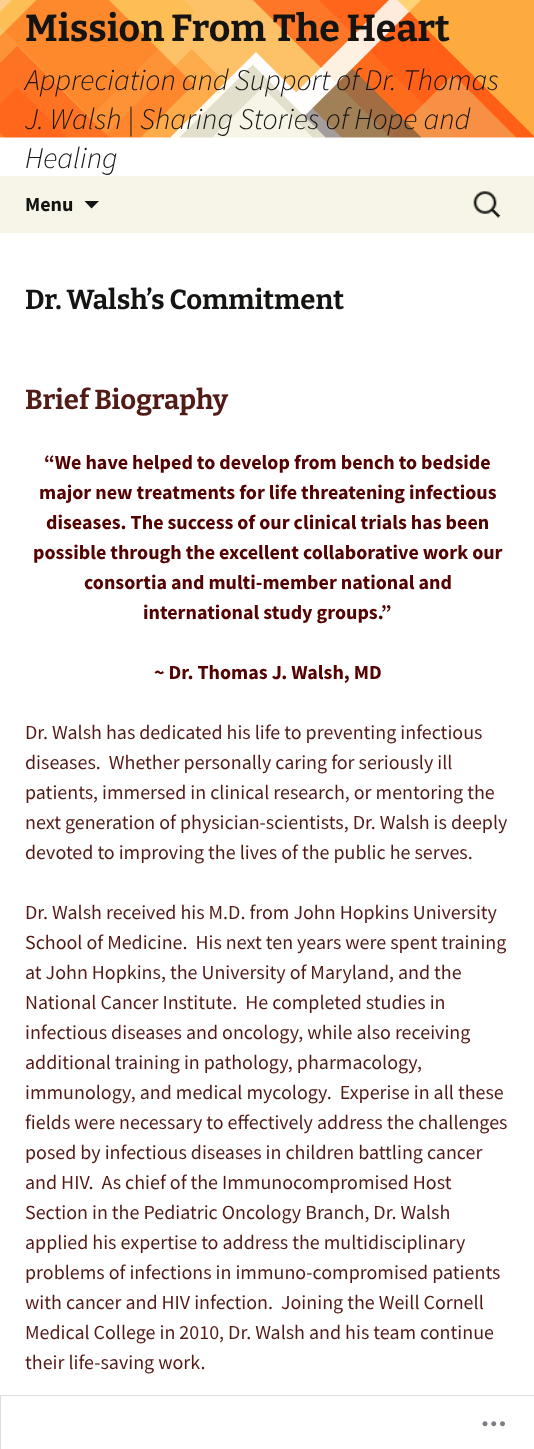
<!DOCTYPE html>
<meta charset="utf-8">
<style>body { margin: 0 } canvas { display: block }</style>
<canvas id="canvas" width="534" height="1449"></canvas>
<img id="img1" src="img_01.png" hidden>
<img id="img2" src="img_02.png" hidden>
<img id="img3" src="img_03.png" hidden>
<script>
window.onload = function () {
	const canvas = document.getElementById("canvas");
	const ctx = canvas.getContext("2d");
	ctx.miterLimit = 4;
	ctx.fontKerning = "normal";
	function txt(s, x, y) {
		ctx.fillText(s, x, y);
	}
	function fill(x, y, w, h) {
		ctx.fillRect(x, y, w, h);
	}
	function img(id, x, y, w, h) {
		ctx.drawImage(document.getElementById(id), x, y, w, h);
	}

	ctx.fillStyle = "#FFFFFF";
	fill(0, 0, 534, 1449);
	img("img1", 0, 0, 534, 138);
	ctx.fillStyle = "#F7F5E7";
	fill(0, 176, 534, 57);
	ctx.fillStyle = "#141412";
	ctx.beginPath();
	ctx.moveTo(84.5, 201);
	ctx.lineTo(99, 201);
	ctx.lineTo(91.5, 208.5);
	ctx.closePath();
	ctx.fill();
	img("img2", 473, 191, 28, 27);
	ctx.strokeStyle = "#DDDDDF";
	ctx.strokeRect(0.5, 1395.5, 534, 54);
	img("img3", 482, 1421, 23, 6);
	ctx.font = "bold 37.5px Bitter";
	txt("Mission From The Heart", 25, 41);
	ctx.font = "italic 300 30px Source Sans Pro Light";
	txt("Appreciation and Support of Dr. Thomas", 25, 90);
	txt("J. Walsh | Sharing Stories of Hope and", 25, 129);
	txt("Healing", 25, 168);
	ctx.font = "bold 20px Source Sans Pro";
	txt("Menu", 25, 211);
	ctx.font = "bold 27.5px Bitter";
	txt("Dr. Walsh’s Commitment", 25, 309);
	ctx.fillStyle = "#531B16";
	txt("Brief Biography", 25, 409);
	ctx.font = "bold 20px Source Sans Pro";
	ctx.fillStyle = "#530302";
	txt("“We have helped to develop from bench to bedside", 44, 469);
	txt("major new treatments for life threatening infectious", 39, 499);
	txt("diseases. The success of our clinical trials has been", 46, 529);
	txt("possible through the excellent collaborative work our", 33, 559);
	txt("consortia and multi-member national and", 84, 589);
	txt("international study groups.”", 143, 619);
	txt("~ Dr. Thomas J. Walsh, MD", 154, 679);
	ctx.font = "20px Source Sans Pro";
	ctx.fillStyle = "#531B16";
	txt("Dr. Walsh has dedicated his life to preventing infectious", 25, 739);
	txt("diseases.  Whether personally caring for seriously ill", 25, 769);
	txt("patients, immersed in clinical research, or mentoring the", 25, 799);
	txt("next generation of physician-scientists, Dr. Walsh is deeply", 25, 829);
	txt("devoted to improving the lives of the public he serves.", 25, 859);
	txt("Dr. Walsh received his M.D. from John Hopkins University", 25, 919);
	txt("School of Medicine.  His next ten years were spent training", 25, 949);
	txt("at John Hopkins, the University of Maryland, and the", 25, 979);
	txt("National Cancer Institute.  He completed studies in", 25, 1009);
	txt("infectious diseases and oncology, while also receiving", 25, 1039);
	txt("additional training in pathology, pharmacology,", 25, 1069);
	txt("immunology, and medical mycology.  Experise in all these", 25, 1099);
	txt("fields were necessary to effectively address the challenges", 25, 1129);
	txt("posed by infectious diseases in children battling cancer", 25, 1159);
	txt("and HIV.  As chief of the Immunocompromised Host", 25, 1189);
	txt("Section in the Pediatric Oncology Branch, Dr. Walsh", 25, 1219);
	txt("applied his expertise to address the multidisciplinary", 25, 1249);
	txt("problems of infections in immuno-compromised patients", 25, 1279);
	txt("with cancer and HIV infection.  Joining the Weill Cornell", 25, 1309);
	txt("Medical College in 2010, Dr. Walsh and his team continue", 25, 1339);
	txt("their life-saving work.", 25, 1369);
};
</script>
